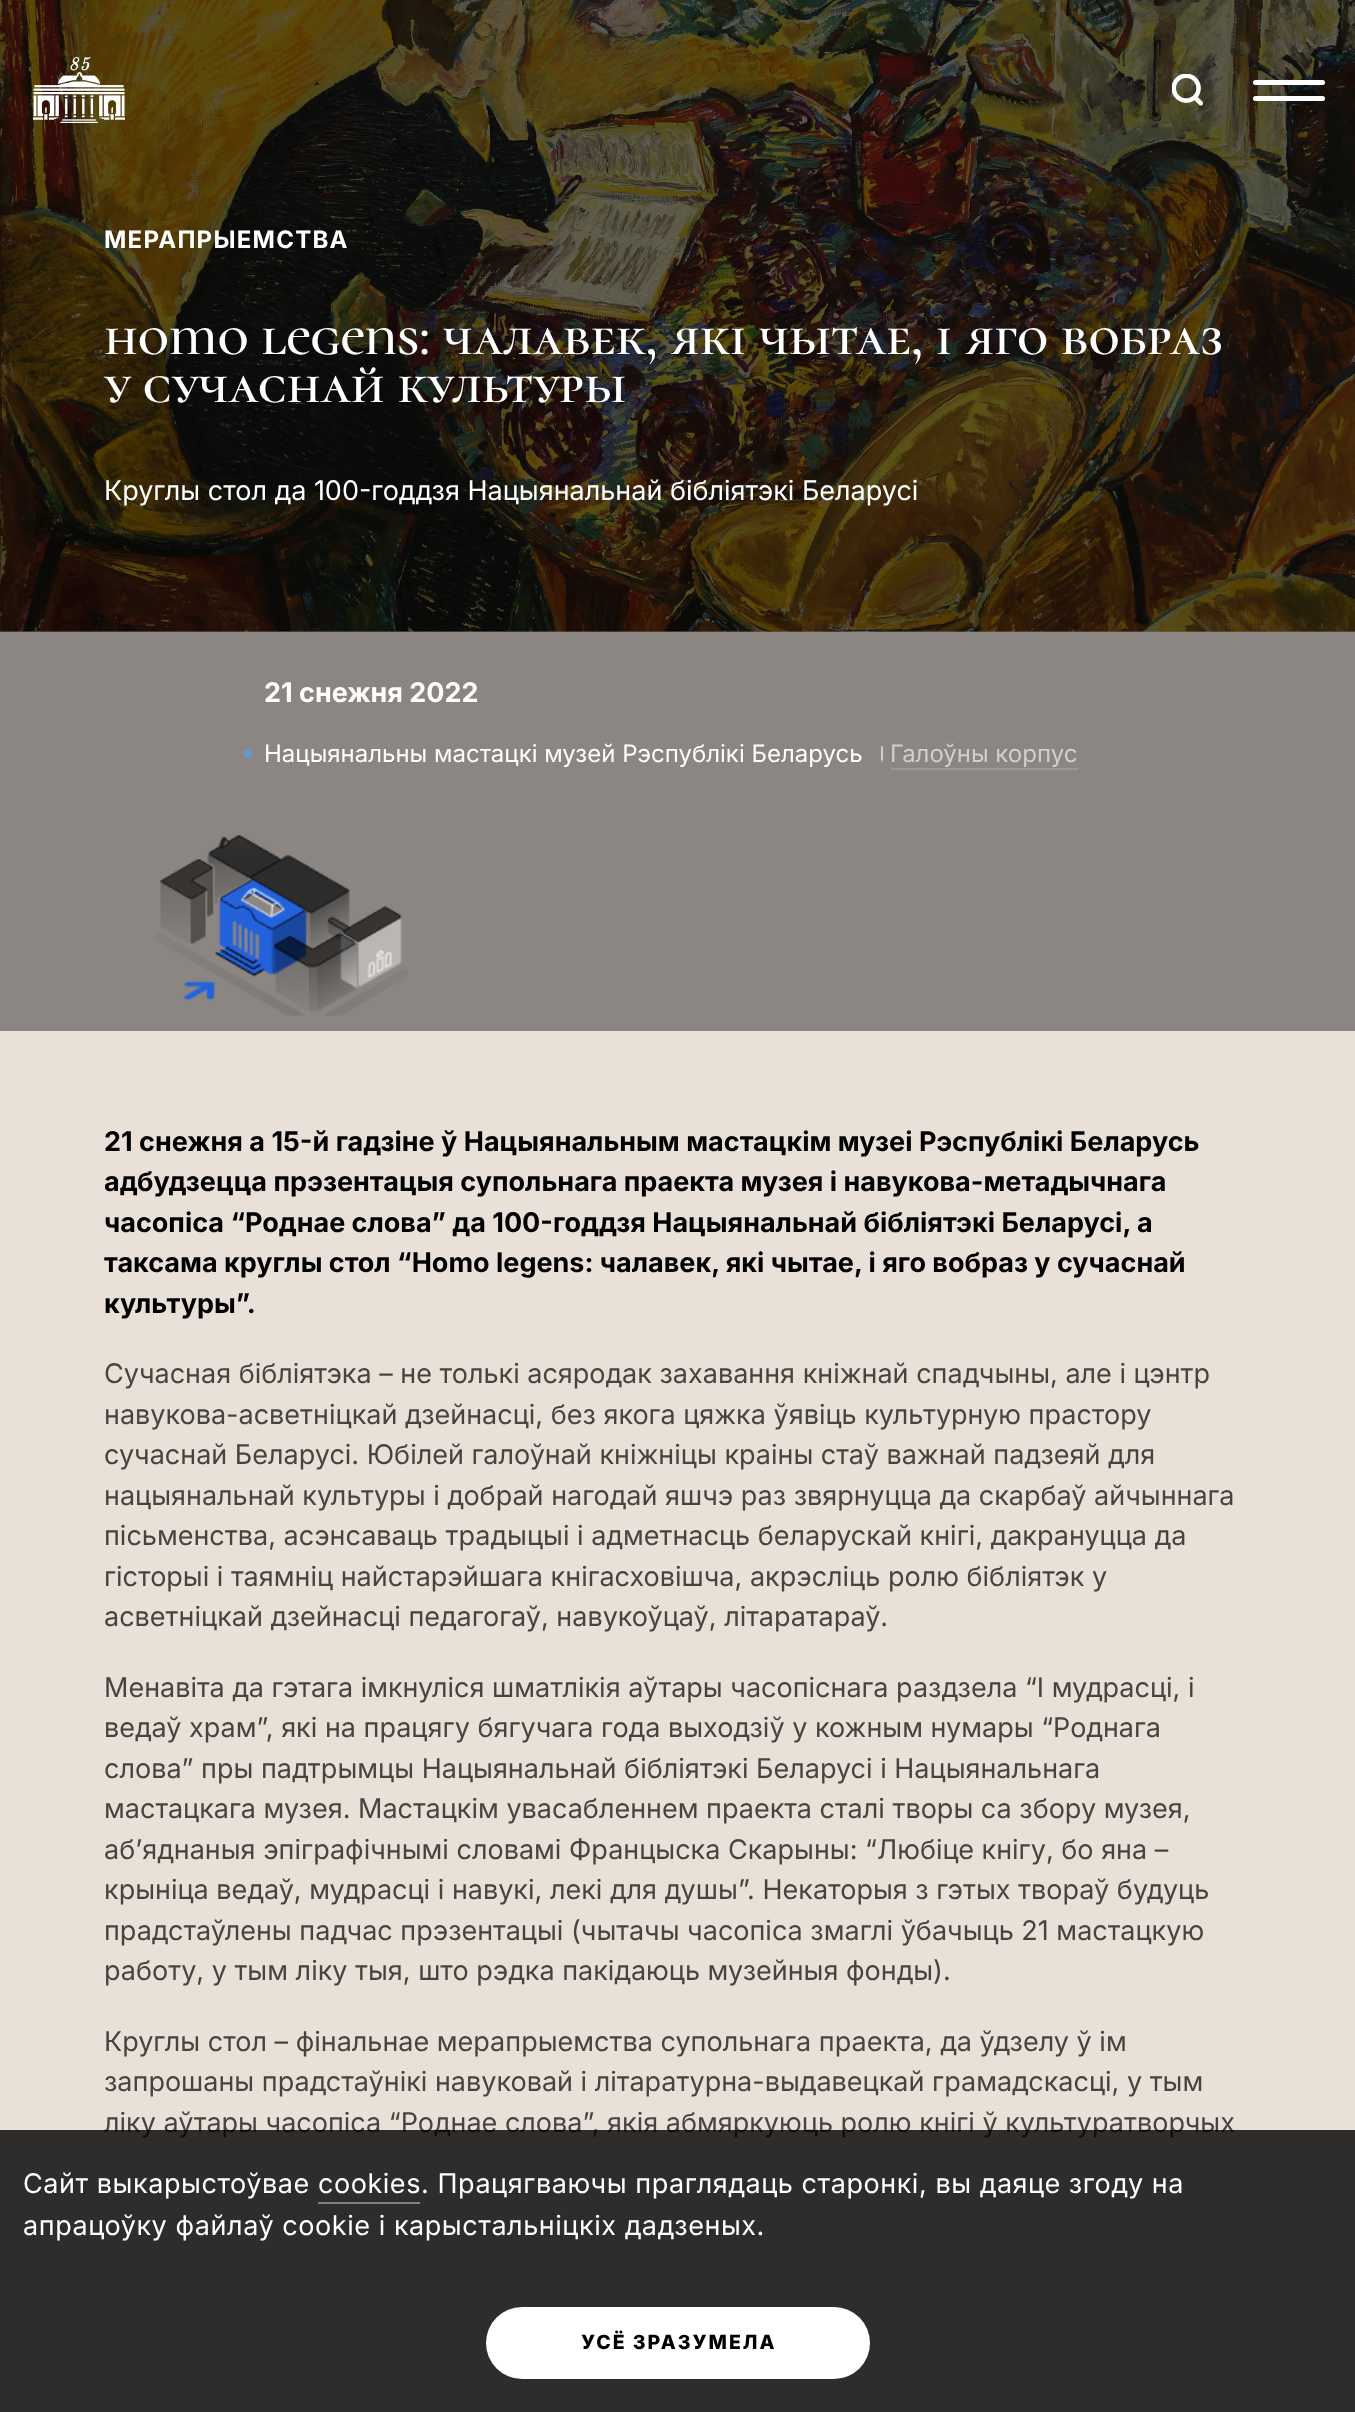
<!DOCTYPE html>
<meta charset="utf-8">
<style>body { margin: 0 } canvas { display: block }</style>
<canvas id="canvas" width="1355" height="2412"></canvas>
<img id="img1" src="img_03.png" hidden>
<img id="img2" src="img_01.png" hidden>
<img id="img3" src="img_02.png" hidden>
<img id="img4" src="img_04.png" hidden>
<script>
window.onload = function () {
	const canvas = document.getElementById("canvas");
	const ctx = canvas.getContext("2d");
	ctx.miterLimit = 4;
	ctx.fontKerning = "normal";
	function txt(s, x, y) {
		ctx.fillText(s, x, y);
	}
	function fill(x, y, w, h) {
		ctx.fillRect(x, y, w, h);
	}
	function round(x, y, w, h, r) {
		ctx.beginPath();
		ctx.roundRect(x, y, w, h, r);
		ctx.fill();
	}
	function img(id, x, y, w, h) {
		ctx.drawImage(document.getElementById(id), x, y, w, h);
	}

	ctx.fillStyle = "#666666";
	fill(0, 0, 1355, 2412);
	img("img1", 0, 0, 1355, 632);
	img("img2", 33, 57, 92, 66);
	img("img3", 1172, 74, 32, 32);
	ctx.fillStyle = "#FFFFFF";
	round(1253, 80, 72, 5, 2.5);
	round(1253, 96, 72, 5, 2.5);
	ctx.fillStyle = "#E9E1D8";
	fill(0, 1031, 1355, 1381);
	ctx.fillStyle = "#8B8682";
	fill(0, 632, 1355, 399);
	ctx.fillStyle = "#6699CC";
	ctx.beginPath();
	ctx.arc(247.5, 753.5, 4.5, 0, Math.PI * 2);
	ctx.fill();
	ctx.fillStyle = "#9C9895";
	fill(881, 761, 2, 2);
	fill(891, 768, 188, 2);
	ctx.fillStyle = "#D1CFCD";
	round(881, 746, 2, 15, 1);
	img("img4", 156, 834, 252, 182);
	ctx.letterSpacing = "1.25px";
	ctx.font = "bold 24px Inter";
	ctx.fillStyle = "#FFFFFF";
	txt("МЕРАПРЫЕМСТВА", 104, 248);
	ctx.letterSpacing = "0px";
	ctx.font = "600 54px Cormorant Unicase";
	txt("homo legens: чалавек, які чытае, і яго вобраз", 104, 354);
	txt("у сучаснай культуры", 104, 402);
	ctx.font = "27px Inter";
	txt("Круглы стол да 100-годдзя Нацыянальнай бібліятэкі Беларусі", 104, 500);
	ctx.font = "bold 27px Inter";
	txt("21 снежня 2022", 264, 702);
	ctx.font = "24px Inter";
	txt("Нацыянальны мастацкі музей Рэспублікі Беларусь", 264, 762);
	ctx.fillStyle = "#D1CFCD";
	txt("Галоўны корпус", 890, 762);
	ctx.font = "bold 27px Inter";
	ctx.fillStyle = "#000000";
	txt("21 снежня а 15-й гадзіне ў Нацыянальным мастацкім музеі Рэспублікі Беларусь", 104, 1151);
	txt("адбудзецца прэзентацыя супольнага праекта музея і навукова-метадычнага", 104, 1191);
	txt("часопіса “Роднае слова” да 100-годдзя Нацыянальнай бібліятэкі Беларусі, а", 104, 1232);
	txt("таксама круглы стол “Нomo legens: чалавек, які чытае, і яго вобраз у сучаснай", 104, 1272);
	txt("культуры”.", 104, 1313);
	ctx.font = "27px Inter";
	ctx.fillStyle = "#464441";
	txt("Сучасная бібліятэка – не толькі асяродак захавання кніжнай спадчыны, але і цэнтр", 104, 1383);
	txt("навукова-асветніцкай дзейнасці, без якога цяжка ўявіць культурную прастору", 104, 1424);
	txt("сучаснай Беларусі. Юбілей галоўнай кніжніцы краіны стаў важнай падзеяй для", 104, 1464);
	txt("нацыянальнай культуры і добрай нагодай яшчэ раз звярнуцца да скарбаў айчыннага", 104, 1505);
	txt("пісьменства, асэнсаваць традыцыі і адметнасць беларускай кнігі, дакрануцца да", 104, 1545);
	txt("гісторыі і таямніц найстарэйшага кнігасховішча, акрэсліць ролю бібліятэк у", 104, 1586);
	txt("асветніцкай дзейнасці педагогаў, навукоўцаў, літаратараў.", 104, 1626);
	txt("Менавіта да гэтага імкнуліся шматлікія аўтары часопіснага раздзела “І мудрасці, і", 104, 1697);
	txt("ведаў храм”, які на працягу бягучага года выходзіў у кожным нумары “Роднага", 104, 1737);
	txt("слова” пры падтрымцы Нацыянальнай бібліятэкі Беларусі і Нацыянальнага", 104, 1778);
	txt("мастацкага музея. Мастацкім увасабленнем праекта сталі творы са збору музея,", 104, 1818);
	txt("аб’яднаныя эпіграфічнымі словамі Францыска Скарыны: “Любіце кнігу, бо яна –", 104, 1859);
	txt("крыніца ведаў, мудрасці і навукі, лекі для душы”. Некаторыя з гэтых твораў будуць", 104, 1899);
	txt("прадстаўлены падчас прэзентацыі (чытачы часопіса змаглі ўбачыць 21 мастацкую", 104, 1940);
	txt("работу, у тым ліку тыя, што рэдка пакідаюць музейныя фонды).", 104, 1980);
	txt("Круглы стол – фінальнае мерапрыемства супольнага праекта, да ўдзелу ў ім", 104, 2051);
	txt("запрошаны прадстаўнікі навуковай і літаратурна-выдавецкай грамадскасці, у тым", 104, 2091);
	txt("ліку аўтары часопіса “Роднае слова”, якія абмяркуюць ролю кнігі ў культуратворчых", 104, 2132);
	ctx.fillStyle = "rgba(0, 0, 0, 0.8)";
	fill(0, 2130, 1355, 282);
	ctx.letterSpacing = "0.55px";
	ctx.fillStyle = "#FFFFFF";
	txt("Сайт выкарыстоўвае cookies. Працягваючы праглядаць старонкі, вы даяце згоду на", 23, 2193);
	ctx.fillStyle = "#828180";
	fill(318, 2202, 102, 2);
	ctx.fillStyle = "#FFFFFF";
	txt("апрацоўку файлаў cookie і карыстальніцкіх дадзеных.", 23, 2235);
	round(486, 2307, 384, 72, 36);
	ctx.letterSpacing = "2px";
	ctx.font = "800 19.5px Inter";
	ctx.fillStyle = "#000000";
	txt("УСЁ ЗРАЗУМЕЛА", 581, 2349);
};
</script>
